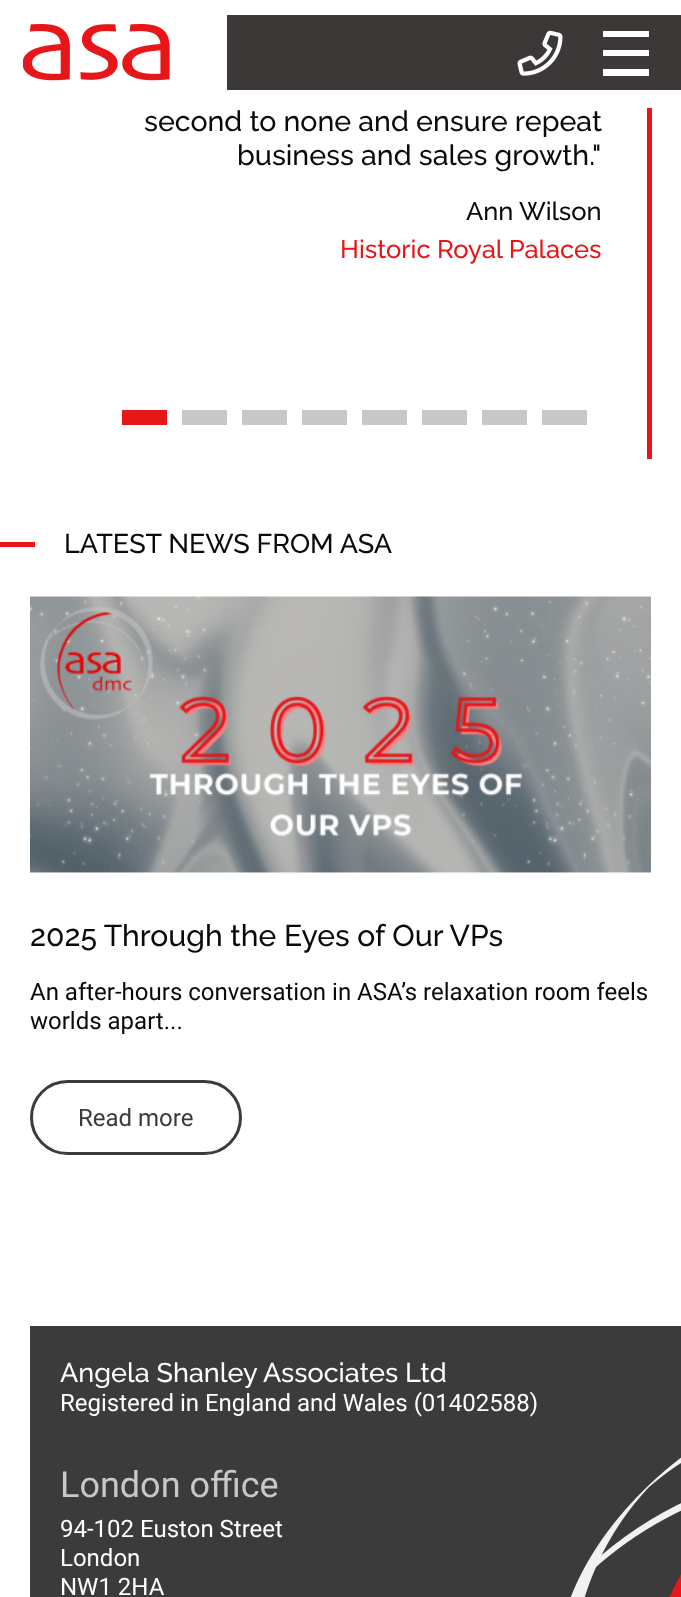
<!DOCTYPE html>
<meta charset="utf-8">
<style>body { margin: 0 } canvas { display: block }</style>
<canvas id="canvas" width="681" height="1597"></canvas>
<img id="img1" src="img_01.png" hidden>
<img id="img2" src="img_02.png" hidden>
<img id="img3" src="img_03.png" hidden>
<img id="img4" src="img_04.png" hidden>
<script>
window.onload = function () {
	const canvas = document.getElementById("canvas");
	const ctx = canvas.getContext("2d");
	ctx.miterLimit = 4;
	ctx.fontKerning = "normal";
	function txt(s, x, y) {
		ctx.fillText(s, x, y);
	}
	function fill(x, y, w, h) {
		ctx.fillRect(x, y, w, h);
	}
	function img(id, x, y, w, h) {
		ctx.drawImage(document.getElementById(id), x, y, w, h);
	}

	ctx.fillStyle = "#FFFFFF";
	fill(0, 0, 681, 1597);
	img("img1", 23, 24, 147, 57);
	ctx.fillStyle = "#3D3838";
	fill(227, 15, 454, 75);
	img("img2", 517, 30, 46, 46);
	ctx.fillStyle = "#FEFEFE";
	ctx.beginPath();
	ctx.moveTo(603, 31);
	ctx.lineTo(649, 31);
	ctx.lineTo(649, 37);
	ctx.lineTo(603, 37);
	ctx.closePath();
	ctx.moveTo(603, 50);
	ctx.lineTo(649, 50);
	ctx.lineTo(649, 56);
	ctx.lineTo(603, 56);
	ctx.closePath();
	ctx.moveTo(603, 69);
	ctx.lineTo(649, 69);
	ctx.lineTo(649, 76);
	ctx.lineTo(603, 76);
	ctx.closePath();
	ctx.fill();
	ctx.fillStyle = "#E71618";
	fill(647, 108, 5, 351);
	fill(122, 410, 45, 15);
	ctx.fillStyle = "#C8C8C8";
	fill(182, 410, 45, 15);
	fill(242, 410, 45, 15);
	fill(302, 410, 45, 15);
	fill(362, 410, 45, 15);
	fill(422, 410, 45, 15);
	fill(482, 410, 45, 15);
	fill(542, 410, 45, 15);
	ctx.fillStyle = "#E71618";
	fill(0, 542, 35, 5);
	img("img3", 30, 596, 621, 277);
	ctx.beginPath();
	ctx.roundRect(31.5, 1081.5, 209, 72, 36);
	ctx.strokeStyle = "#3B3B3B";
	ctx.lineWidth = 3;
	ctx.stroke();
	ctx.fillStyle = "#3B3B3B";
	fill(30, 1326, 651, 271);
	img("img4", 570, 1457, 111, 140);
	ctx.font = "500 28.5px Raleway";
	ctx.fillStyle = "#0A0A0A";
	txt("second to none and ensure repeat", 144, 131);
	txt("business and sales growth.\"", 237, 165);
	ctx.font = "500 25.5px Raleway";
	txt("Ann Wilson", 466, 220);
	ctx.fillStyle = "#E71618";
	txt("Historic Royal Palaces", 340, 258);
	ctx.font = "500 27px Raleway";
	ctx.fillStyle = "#0A0A0A";
	txt("LATEST NEWS FROM ASA", 64, 553);
	ctx.font = "500 30px Raleway";
	txt("2025 Through the Eyes of Our VPs", 30, 946);
	ctx.font = "24px Roboto";
	txt("An after-hours conversation in ASA’s relaxation room feels", 30, 1000);
	txt("worlds apart...", 30, 1029);
	ctx.fillStyle = "#3B3B3B";
	txt("Read more", 78, 1126);
	ctx.font = "500 27px Raleway";
	ctx.fillStyle = "#FEFEFE";
	txt("Angela Shanley Associates Ltd", 60, 1382);
	ctx.font = "24px Roboto";
	txt("Registered in England and Wales (01402588)", 60, 1411);
	ctx.font = "36px Roboto";
	ctx.fillStyle = "#C8C8C8";
	txt("London office", 60, 1497);
	ctx.font = "24px Roboto";
	ctx.fillStyle = "#FEFEFE";
	txt("94-102 Euston Street", 60, 1537);
	txt("London", 60, 1566);
	txt("NW1 2HA", 60, 1595);
};
</script>
